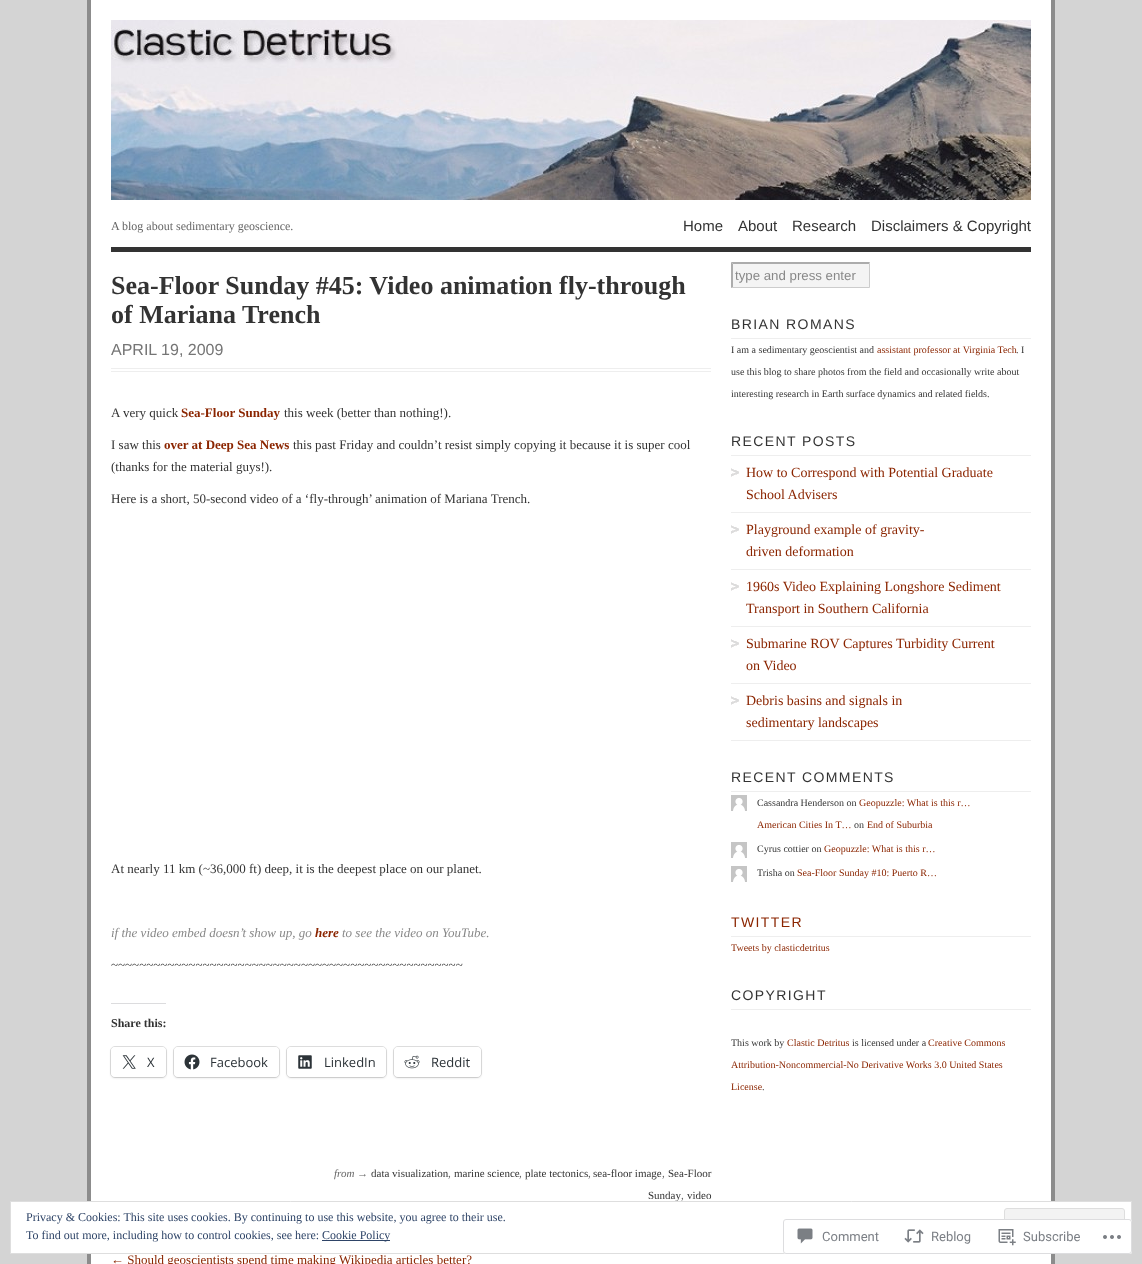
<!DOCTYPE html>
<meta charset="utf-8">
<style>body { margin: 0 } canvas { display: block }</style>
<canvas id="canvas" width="1142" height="1264"></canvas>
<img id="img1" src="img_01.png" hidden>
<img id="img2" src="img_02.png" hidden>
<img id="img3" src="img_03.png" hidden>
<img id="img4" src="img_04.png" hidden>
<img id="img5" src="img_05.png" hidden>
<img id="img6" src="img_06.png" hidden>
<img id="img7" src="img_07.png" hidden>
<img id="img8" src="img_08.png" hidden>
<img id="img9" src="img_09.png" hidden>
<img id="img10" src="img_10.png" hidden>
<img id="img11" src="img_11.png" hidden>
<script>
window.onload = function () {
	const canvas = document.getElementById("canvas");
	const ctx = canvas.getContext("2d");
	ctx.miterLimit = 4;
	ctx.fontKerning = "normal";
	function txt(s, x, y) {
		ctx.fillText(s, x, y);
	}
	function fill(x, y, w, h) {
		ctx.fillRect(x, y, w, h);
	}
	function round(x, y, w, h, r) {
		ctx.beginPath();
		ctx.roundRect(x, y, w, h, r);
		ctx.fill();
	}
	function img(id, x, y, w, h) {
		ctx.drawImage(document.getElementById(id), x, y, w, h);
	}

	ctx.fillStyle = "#D4D4D4";
	fill(0, 0, 1142, 1264);
	ctx.fillStyle = "#FFFFFF";
	fill(91, 0, 960, 1264);
	ctx.fillStyle = "#8C8C8C";
	fill(1051, 0, 4, 1264);
	fill(87, 0, 4, 1264);
	ctx.fillStyle = "#333333";
	fill(111, 247, 920, 5);
	img("img1", 111, 20, 920, 180);
	ctx.fillStyle = "#EEEEEE";
	fill(111, 368, 600, 1);
	fill(111, 371, 600, 1);
	ctx.fillStyle = "#DCDCDE";
	fill(111, 1003, 55, 1);
	ctx.beginPath();
	ctx.roundRect(110.5, 1046.5, 56, 31, 4.5);
	ctx.strokeStyle = "#E0E0E0";
	ctx.stroke();
	ctx.fillStyle = "rgba(0, 0, 0, 0.12)";
	ctx.filter = "blur(1px)";
	ctx.beginPath();
	ctx.roundRect(111, 1048, 55, 30, 4);
	ctx.fill();
	ctx.filter = "none";
	ctx.fillStyle = "#FFFFFF";
	round(111, 1047, 55, 30, 4);
	img("img2", 122, 1055, 14, 14);
	ctx.beginPath();
	ctx.roundRect(173.5, 1046.5, 106, 31, 4.5);
	ctx.stroke();
	ctx.fillStyle = "rgba(0, 0, 0, 0.12)";
	ctx.filter = "blur(1px)";
	ctx.beginPath();
	ctx.roundRect(174, 1048, 105, 30, 4);
	ctx.fill();
	ctx.filter = "none";
	ctx.fillStyle = "#FFFFFF";
	round(174, 1047, 105, 30, 4);
	img("img3", 184, 1054, 16, 16);
	ctx.beginPath();
	ctx.roundRect(286.5, 1046.5, 100, 31, 4.5);
	ctx.stroke();
	ctx.fillStyle = "rgba(0, 0, 0, 0.12)";
	ctx.filter = "blur(1px)";
	ctx.beginPath();
	ctx.roundRect(287, 1048, 99, 30, 4);
	ctx.fill();
	ctx.filter = "none";
	ctx.fillStyle = "#FFFFFF";
	round(287, 1047, 99, 30, 4);
	img("img4", 298, 1055, 14, 14);
	ctx.beginPath();
	ctx.roundRect(393.5, 1046.5, 88, 31, 4.5);
	ctx.stroke();
	ctx.fillStyle = "rgba(0, 0, 0, 0.12)";
	ctx.filter = "blur(1px)";
	ctx.beginPath();
	ctx.roundRect(394, 1048, 87, 30, 4);
	ctx.fill();
	ctx.filter = "none";
	ctx.fillStyle = "#FFFFFF";
	round(394, 1047, 87, 30, 4);
	img("img5", 404, 1055, 16, 14);
	ctx.fillStyle = "#F4F4F4";
	fill(733, 264, 136, 23);
	ctx.fillStyle = "#ACACAC";
	ctx.beginPath();
	ctx.moveTo(731, 262);
	ctx.lineTo(870, 262);
	ctx.lineTo(869, 264);
	ctx.lineTo(733, 264);
	ctx.closePath();
	ctx.fill();
	ctx.fillStyle = "#CCCCCC";
	ctx.beginPath();
	ctx.moveTo(870, 262);
	ctx.lineTo(870, 288);
	ctx.lineTo(869, 287);
	ctx.lineTo(869, 264);
	ctx.closePath();
	ctx.fill();
	ctx.beginPath();
	ctx.moveTo(870, 288);
	ctx.lineTo(731, 288);
	ctx.lineTo(733, 287);
	ctx.lineTo(869, 287);
	ctx.closePath();
	ctx.fill();
	ctx.fillStyle = "#ACACAC";
	ctx.beginPath();
	ctx.moveTo(731, 288);
	ctx.lineTo(731, 262);
	ctx.lineTo(733, 264);
	ctx.lineTo(733, 287);
	ctx.closePath();
	ctx.fill();
	ctx.fillStyle = "#EEEEEE";
	fill(731, 338, 300, 1);
	fill(731, 455, 300, 1);
	fill(731, 512, 300, 1);
	img("img6", 731, 468, 8, 9);
	fill(731, 569, 300, 1);
	img("img6", 731, 525, 8, 9);
	fill(731, 626, 300, 1);
	img("img6", 731, 582, 8, 9);
	fill(731, 683, 300, 1);
	img("img6", 731, 639, 8, 9);
	fill(731, 740, 300, 1);
	img("img6", 731, 696, 8, 9);
	fill(731, 791, 300, 1);
	img("img7", 731, 795, 16, 16);
	img("img7", 731, 842, 16, 16);
	img("img7", 731, 866, 16, 16);
	fill(731, 936, 300, 1);
	fill(731, 1009, 300, 1);
	ctx.font = "12px Liberation Serif";
	ctx.fillStyle = "#666666";
	txt("A blog about sedimentary geoscience.", 111, 230);
	ctx.font = "15px Liberation Sans";
	ctx.fillStyle = "#333333";
	txt("Home", 683, 231);
	txt("About", 738, 231);
	txt("Research", 792, 231);
	txt("Disclaimers & Copyright", 871, 231);
	ctx.font = "bold 26px Liberation Serif";
	txt("Sea-Floor Sunday #45: Video animation fly-through", 111, 294);
	txt("of Mariana Trench", 111, 323);
	ctx.font = "16px Liberation Sans";
	ctx.fillStyle = "#757575";
	txt("APRIL 19, 2009", 111, 355);
	ctx.font = "13px Liberation Serif";
	ctx.fillStyle = "#333333";
	txt("A very quick", 111, 417);
	ctx.font = "bold 13px Liberation Serif";
	ctx.fillStyle = "#8B2500";
	txt("Sea-Floor Sunday", 181, 417);
	ctx.font = "13px Liberation Serif";
	ctx.fillStyle = "#333333";
	txt("this week (better than nothing!).", 284, 417);
	txt("I saw this", 111, 449);
	ctx.font = "bold 13px Liberation Serif";
	ctx.fillStyle = "#8B2500";
	txt("over at Deep Sea News", 164, 449);
	ctx.font = "13px Liberation Serif";
	ctx.fillStyle = "#333333";
	txt("this past Friday and couldn’t resist simply copying it because it is super cool", 293, 449);
	txt("(thanks for the material guys!).", 111, 471);
	txt("Here is a short, 50-second video of a ‘fly-through’ animation of Mariana Trench.", 111, 503);
	txt("At nearly 11 km (~36,000 ft) deep, it is the deepest place on our planet.", 111, 873);
	ctx.font = "italic 13px Liberation Serif";
	ctx.fillStyle = "#888888";
	txt("if the video embed doesn’t show up, go", 111, 937);
	ctx.font = "italic bold 13px Liberation Serif";
	ctx.fillStyle = "#8B2500";
	txt("here", 315, 937);
	ctx.font = "italic 13px Liberation Serif";
	ctx.fillStyle = "#888888";
	txt("to see the video on YouTube.", 342, 937);
	ctx.font = "13px Liberation Serif";
	ctx.fillStyle = "#333333";
	txt("~~~~~~~~~~~~~~~~~~~~~~~~~~~~~~~~~~~~~~~~~~~~~~~~~~", 111, 969);
	ctx.font = "bold 12px Liberation Serif";
	txt("Share this:", 111, 1027);
	ctx.font = "13px Open Sans";
	ctx.fillStyle = "#2C3338";
	txt("X", 147, 1067);
	txt("Facebook", 210, 1067);
	txt("LinkedIn", 324, 1067);
	txt("Reddit", 431, 1067);
	ctx.font = "italic 11px Liberation Serif";
	ctx.fillStyle = "#666666";
	txt("from →", 334, 1177);
	ctx.font = "11px Liberation Serif";
	ctx.fillStyle = "#333333";
	txt("data visualization", 371, 1177);
	ctx.font = "italic 11px Liberation Serif";
	ctx.fillStyle = "#666666";
	txt(",", 448, 1177);
	ctx.font = "11px Liberation Serif";
	ctx.fillStyle = "#333333";
	txt("marine science", 454, 1177);
	ctx.font = "italic 11px Liberation Serif";
	ctx.fillStyle = "#666666";
	txt(",", 519, 1177);
	ctx.font = "11px Liberation Serif";
	ctx.fillStyle = "#333333";
	txt("plate tectonics", 525, 1177);
	ctx.font = "italic 11px Liberation Serif";
	ctx.fillStyle = "#666666";
	txt(",", 588, 1177);
	ctx.font = "11px Liberation Serif";
	ctx.fillStyle = "#333333";
	txt("sea-floor image", 593, 1177);
	ctx.font = "italic 11px Liberation Serif";
	ctx.fillStyle = "#666666";
	txt(",", 662, 1177);
	ctx.font = "11px Liberation Serif";
	ctx.fillStyle = "#333333";
	txt("Sea-Floor", 668, 1177);
	txt("Sunday", 648, 1199);
	ctx.font = "italic 11px Liberation Serif";
	ctx.fillStyle = "#666666";
	txt(",", 681, 1199);
	ctx.font = "11px Liberation Serif";
	ctx.fillStyle = "#333333";
	txt("video", 687, 1199);
	ctx.font = "13px Liberation Serif";
	ctx.fillStyle = "#8B2500";
	txt("← Should geoscientists spend time making Wikipedia articles better?", 111, 1264);
	ctx.font = "13.25px Liberation Sans";
	ctx.fillStyle = "#888888";
	txt("type and press enter", 735, 280);
	ctx.letterSpacing = "1.4px";
	ctx.font = "14px Liberation Sans";
	ctx.fillStyle = "#333333";
	txt("BRIAN ROMANS", 731, 329);
	ctx.letterSpacing = "0px";
	ctx.font = "10px Liberation Serif";
	txt("I am a sedimentary geoscientist and", 731, 353);
	ctx.fillStyle = "#8B2500";
	txt("assistant professor at Virginia Tech", 877, 353);
	ctx.fillStyle = "#333333";
	txt(". I", 1016, 353);
	txt("use this blog to share photos from the field and occasionally write about", 731, 375);
	txt("interesting research in Earth surface dynamics and related fields.", 731, 397);
	ctx.letterSpacing = "1.4px";
	ctx.font = "14px Liberation Sans";
	txt("RECENT POSTS", 731, 446);
	ctx.letterSpacing = "0px";
	ctx.font = "14px Liberation Serif";
	ctx.fillStyle = "#8B2500";
	txt("How to Correspond with Potential Graduate", 746, 477);
	txt("School Advisers", 746, 499);
	txt("Playground example of gravity-", 746, 534);
	txt("driven deformation", 746, 556);
	txt("1960s Video Explaining Longshore Sediment", 746, 591);
	txt("Transport in Southern California", 746, 613);
	txt("Submarine ROV Captures Turbidity Current", 746, 648);
	txt("on Video", 746, 670);
	txt("Debris basins and signals in", 746, 705);
	txt("sedimentary landscapes", 746, 727);
	ctx.letterSpacing = "1.4px";
	ctx.font = "14px Liberation Sans";
	ctx.fillStyle = "#333333";
	txt("RECENT COMMENTS", 731, 782);
	ctx.letterSpacing = "0px";
	ctx.font = "10px Liberation Serif";
	txt("Cassandra Henderson on", 757, 806);
	ctx.fillStyle = "#8B2500";
	txt("Geopuzzle: What is this r…", 859, 806);
	txt("American Cities In T…", 757, 828);
	ctx.fillStyle = "#333333";
	txt("on", 854, 828);
	ctx.fillStyle = "#8B2500";
	txt("End of Suburbia", 867, 828);
	ctx.fillStyle = "#333333";
	txt("Cyrus cottier on", 757, 852);
	ctx.fillStyle = "#8B2500";
	txt("Geopuzzle: What is this r…", 824, 852);
	ctx.fillStyle = "#333333";
	txt("Trisha on", 757, 876);
	ctx.fillStyle = "#8B2500";
	txt("Sea-Floor Sunday #10: Puerto R…", 797, 876);
	ctx.letterSpacing = "1.4px";
	ctx.font = "14px Liberation Sans";
	txt("TWITTER", 731, 927);
	ctx.letterSpacing = "0px";
	ctx.font = "10px Liberation Serif";
	txt("Tweets by clasticdetritus", 731, 951);
	ctx.letterSpacing = "1.4px";
	ctx.font = "14px Liberation Sans";
	ctx.fillStyle = "#333333";
	txt("COPYRIGHT", 731, 1000);
	ctx.letterSpacing = "0px";
	ctx.font = "10px Liberation Serif";
	txt("This work by", 731, 1046);
	ctx.fillStyle = "#8B2500";
	txt("Clastic Detritus", 787, 1046);
	ctx.fillStyle = "#333333";
	txt("is licensed under a", 852, 1046);
	ctx.fillStyle = "#8B2500";
	txt("Creative Commons", 928, 1046);
	txt("Attribution-Noncommercial-No Derivative Works 3.0 United States", 731, 1068);
	txt("License", 731, 1090);
	ctx.fillStyle = "#333333";
	txt(".", 762, 1090);
	ctx.fillStyle = "#FFFFFF";
	ctx.beginPath();
	ctx.rect(10.5, 1201.5, 1121, 52);
	ctx.fill();
	ctx.strokeStyle = "#DEDEDE";
	ctx.stroke();
	ctx.font = "12px Liberation Serif";
	ctx.fillStyle = "#2E4467";
	txt("Privacy & Cookies: This site uses cookies. By continuing to use this website, you agree to their use.", 26, 1221);
	ctx.fillStyle = "#F3F3F3";
	ctx.beginPath();
	ctx.roundRect(1004.5, 1208.5, 120, 38, 2.5);
	ctx.fill();
	ctx.stroke();
	ctx.fillStyle = "#2E4467";
	txt("To find out more, including how to control cookies, see here:", 26, 1239);
	fill(322, 1240, 68, 1);
	txt("Cookie Policy", 322, 1239);
	ctx.fillStyle = "rgba(255, 255, 255, 0.98)";
	round(783, 1219, 349, 35, 3);
	ctx.beginPath();
	ctx.roundRect(783.5, 1219.5, 348, 34, 2.5);
	ctx.strokeStyle = "rgba(220, 220, 222, 0.98)";
	ctx.stroke();
	img("img8", 797, 1228, 16, 16);
	ctx.font = "13px Roboto";
	ctx.fillStyle = "#7B7F85";
	txt("Comment", 822, 1241);
	img("img9", 904, 1229, 20, 14);
	txt("Reblog", 931, 1241);
	img("img10", 998, 1229, 18, 17);
	txt("Subscribe", 1023, 1241);
	img("img11", 1103, 1235, 18, 4);
};
</script>
